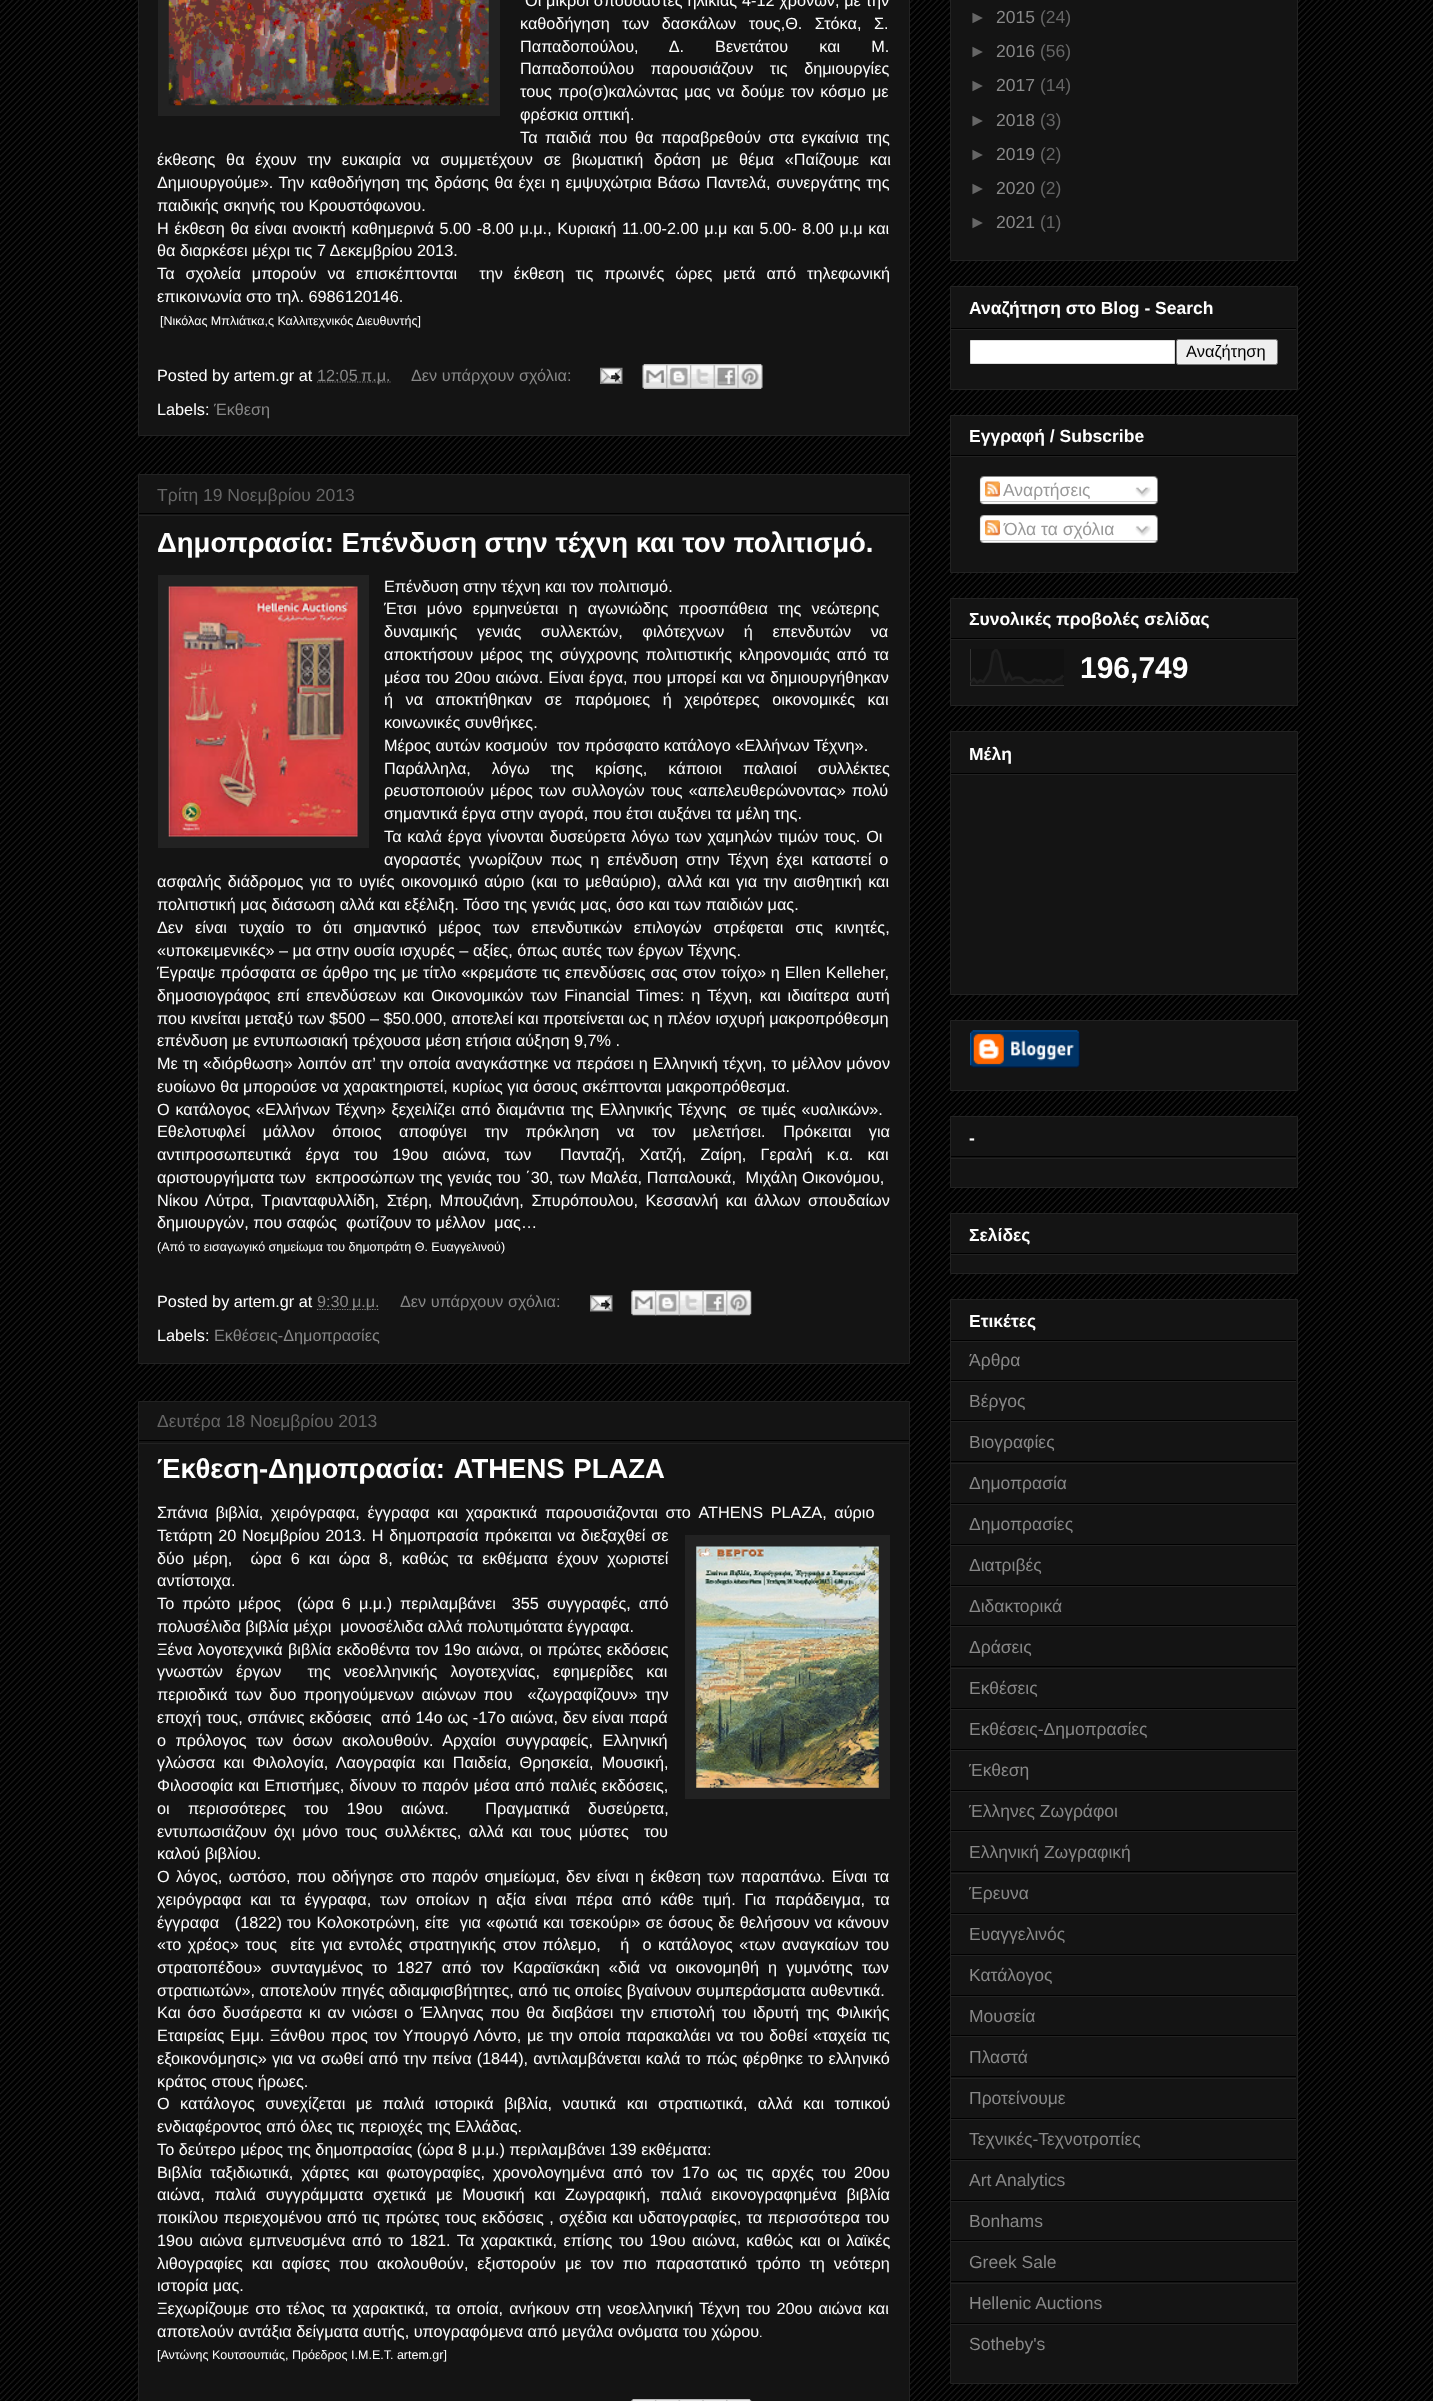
<!DOCTYPE html>
<meta charset="utf-8">
<style>body { margin: 0 } canvas { display: block }</style>
<canvas id="canvas" width="1433" height="2401"></canvas>
<img id="img1" src="img_01.png" hidden>
<img id="img2" src="img_02.png" hidden>
<img id="img3" src="img_03.png" hidden>
<img id="img4" src="img_04.png" hidden>
<img id="img5" src="img_05.png" hidden>
<img id="img6" src="img_06.png" hidden>
<img id="img7" src="img_07.png" hidden>
<img id="img8" src="img_08.png" hidden>
<img id="img9" src="img_09.png" hidden>
<img id="img10" src="img_10.png" hidden>
<img id="img11" src="img_11.png" hidden>
<img id="img12" src="img_12.png" hidden>
<img id="img13" src="img_13.png" hidden>
<img id="img14" src="img_14.png" hidden>
<img id="img15" src="img_15.png" hidden>
<img id="img16" src="img_16.png" hidden>
<img id="img17" src="img_17.png" hidden>
<img id="img18" src="img_18.png" hidden>
<img id="img19" src="img_19.png" hidden>
<img id="img20" src="img_20.png" hidden>
<img id="img21" src="img_21.png" hidden>
<img id="img22" src="img_22.png" hidden>
<img id="img23" src="img_23.png" hidden>
<img id="img24" src="img_24.png" hidden>
<img id="img25" src="img_25.png" hidden>
<img id="img26" src="img_26.png" hidden>
<img id="img27" src="img_27.png" hidden>
<img id="img28" src="img_28.png" hidden>
<img id="img29" src="img_29.png" hidden>
<img id="img30" src="img_30.png" hidden>
<img id="img31" src="img_31.png" hidden>
<script>
window.onload = function () {
	const canvas = document.getElementById("canvas");
	const ctx = canvas.getContext("2d");
	ctx.miterLimit = 4;
	ctx.fontKerning = "normal";
	function txt(s, x, y) {
		ctx.fillText(s, x, y);
	}
	function fill(x, y, w, h) {
		ctx.fillRect(x, y, w, h);
	}
	function img(id, x, y, w, h) {
		ctx.drawImage(document.getElementById(id), x, y, w, h);
	}

	ctx.fillStyle = "#000000";
	fill(0, 0, 1433, 2401);
	img("img1", 0, 0, 1433, 2401);
	ctx.fillStyle = "#141414";
	ctx.beginPath();
	ctx.rect(138.5, -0.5, 771, 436);
	ctx.fill();
	ctx.strokeStyle = "#222222";
	ctx.stroke();
	ctx.fillStyle = "#222222";
	fill(158, 0, 342, 116);
	img("img2", 168, 0, 321, 106);
	ctx.beginPath();
	ctx.moveTo(317, 382);
	ctx.lineTo(390.5, 382);
	ctx.strokeStyle = "#888888";
	ctx.lineWidth = 1.2;
	ctx.setLineDash([1.25, 1.25]);
	ctx.stroke();
	img("img3", 600, 367, 23, 17);
	img("img4", 642, 364, 25, 25);
	img("img5", 666, 364, 24, 25);
	img("img6", 690, 364, 24, 25);
	img("img7", 713, 364, 25, 25);
	img("img8", 737, 364, 26, 25);
	ctx.fillStyle = "#141414";
	ctx.beginPath();
	ctx.rect(138.5, 474.5, 771, 889);
	ctx.fill();
	ctx.strokeStyle = "#222222";
	ctx.lineWidth = 1;
	ctx.setLineDash([]);
	ctx.stroke();
	ctx.fillStyle = "#000000";
	fill(139, 513, 770, 1);
	ctx.fillStyle = "#222222";
	fill(139, 515, 770, 1);
	fill(158, 575, 211, 273);
	img("img9", 168, 586, 190, 251);
	ctx.beginPath();
	ctx.moveTo(317, 1309.5);
	ctx.lineTo(379.5, 1309.5);
	ctx.strokeStyle = "#888888";
	ctx.lineWidth = 1.2;
	ctx.setLineDash([1.25, 1.25]);
	ctx.stroke();
	img("img10", 590, 1295, 23, 17);
	img("img11", 631, 1290, 26, 26);
	img("img12", 655, 1290, 25, 26);
	img("img13", 678, 1290, 26, 26);
	img("img14", 702, 1290, 26, 26);
	img("img15", 726, 1290, 26, 26);
	ctx.fillStyle = "#141414";
	ctx.beginPath();
	ctx.rect(138.5, 1401.5, 771, 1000);
	ctx.fill();
	ctx.strokeStyle = "#222222";
	ctx.lineWidth = 1;
	ctx.setLineDash([]);
	ctx.stroke();
	ctx.fillStyle = "#000000";
	fill(139, 1440, 770, 1);
	ctx.fillStyle = "#222222";
	fill(139, 1443, 770, 1);
	fill(685, 1535, 205, 264);
	img("img16", 696, 1546, 183, 242);
	img("img17", 631, 2399, 24, 2);
	img("img18", 655, 2399, 24, 2);
	img("img19", 678, 2399, 25, 2);
	img("img20", 702, 2399, 25, 2);
	img("img21", 726, 2399, 26, 2);
	ctx.fillStyle = "#141414";
	ctx.beginPath();
	ctx.rect(950.5, -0.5, 347, 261);
	ctx.fill();
	ctx.stroke();
	ctx.beginPath();
	ctx.rect(950.5, 286.5, 347, 103);
	ctx.fill();
	ctx.stroke();
	ctx.fillStyle = "#000000";
	fill(951, 328, 345, 1);
	ctx.fillStyle = "#222222";
	fill(951, 329, 345, 1);
	ctx.fillStyle = "#FFFFFF";
	ctx.beginPath();
	ctx.rect(970.5, 340.5, 204, 23);
	ctx.fill();
	ctx.strokeStyle = "#DDDDDD";
	ctx.stroke();
	ctx.fillStyle = "#EFEFEF";
	ctx.beginPath();
	ctx.roundRect(1176.5, 339.5, 101, 25, 2);
	ctx.fill();
	ctx.strokeStyle = "#767676";
	ctx.stroke();
	ctx.fillStyle = "#141414";
	ctx.beginPath();
	ctx.rect(950.5, 415.5, 347, 157);
	ctx.fill();
	ctx.strokeStyle = "#222222";
	ctx.stroke();
	ctx.fillStyle = "#000000";
	fill(951, 455, 345, 1);
	ctx.fillStyle = "#222222";
	fill(951, 456, 345, 1);
	img("img22", 979, 476, 179, 26);
	img("img23", 985, 481, 15, 16);
	img("img24", 1135, 487, 16, 11);
	img("img25", 979, 501, 179, 4);
	img("img26", 979, 515, 179, 26);
	img("img27", 985, 520, 15, 16);
	img("img28", 1135, 525, 16, 12);
	img("img29", 979, 540, 179, 3);
	ctx.fillStyle = "#141414";
	ctx.beginPath();
	ctx.rect(950.5, 598.5, 347, 107);
	ctx.fill();
	ctx.stroke();
	ctx.fillStyle = "#000000";
	fill(951, 638, 345, 1);
	ctx.fillStyle = "#222222";
	fill(951, 639, 345, 1);
	img("img30", 970, 649, 94, 37);
	ctx.fillStyle = "#141414";
	ctx.beginPath();
	ctx.rect(950.5, 731.5, 347, 263);
	ctx.fill();
	ctx.stroke();
	ctx.fillStyle = "#000000";
	fill(951, 773, 345, 1);
	ctx.fillStyle = "#222222";
	fill(951, 774, 345, 1);
	ctx.fillStyle = "#141414";
	ctx.beginPath();
	ctx.rect(950.5, 1020.5, 347, 70);
	ctx.fill();
	ctx.stroke();
	img("img31", 970, 1030, 110, 38);
	ctx.beginPath();
	ctx.rect(950.5, 1116.5, 347, 71);
	ctx.fill();
	ctx.stroke();
	ctx.fillStyle = "#000000";
	fill(951, 1156, 345, 1);
	ctx.fillStyle = "#222222";
	fill(951, 1158, 345, 1);
	ctx.fillStyle = "#141414";
	ctx.beginPath();
	ctx.rect(950.5, 1213.5, 347, 60);
	ctx.fill();
	ctx.stroke();
	ctx.fillStyle = "#000000";
	fill(951, 1253, 345, 1);
	ctx.fillStyle = "#222222";
	fill(951, 1254, 345, 1);
	ctx.fillStyle = "#141414";
	ctx.beginPath();
	ctx.rect(950.5, 1299.5, 347, 1084);
	ctx.fill();
	ctx.stroke();
	ctx.fillStyle = "#000000";
	fill(951, 1340, 345, 1);
	ctx.fillStyle = "#222222";
	fill(951, 1341, 345, 1);
	ctx.fillStyle = "#000000";
	fill(951, 1380, 345, 1);
	ctx.fillStyle = "#222222";
	fill(951, 1381, 345, 1);
	ctx.fillStyle = "#000000";
	fill(951, 1420, 345, 1);
	ctx.fillStyle = "#222222";
	fill(951, 1421, 345, 1);
	ctx.fillStyle = "#000000";
	fill(951, 1461, 345, 1);
	ctx.fillStyle = "#222222";
	fill(951, 1463, 345, 1);
	ctx.fillStyle = "#000000";
	fill(951, 1503, 345, 1);
	ctx.fillStyle = "#222222";
	fill(951, 1504, 345, 1);
	ctx.fillStyle = "#000000";
	fill(951, 1544, 345, 1);
	ctx.fillStyle = "#222222";
	fill(951, 1545, 345, 1);
	ctx.fillStyle = "#000000";
	fill(951, 1585, 345, 1);
	ctx.fillStyle = "#222222";
	fill(951, 1586, 345, 1);
	ctx.fillStyle = "#000000";
	fill(951, 1625, 345, 1);
	ctx.fillStyle = "#222222";
	fill(951, 1626, 345, 1);
	ctx.fillStyle = "#000000";
	fill(951, 1666, 345, 1);
	ctx.fillStyle = "#222222";
	fill(951, 1668, 345, 1);
	ctx.fillStyle = "#000000";
	fill(951, 1708, 345, 1);
	ctx.fillStyle = "#222222";
	fill(951, 1709, 345, 1);
	ctx.fillStyle = "#000000";
	fill(951, 1749, 345, 1);
	ctx.fillStyle = "#222222";
	fill(951, 1750, 345, 1);
	ctx.fillStyle = "#000000";
	fill(951, 1790, 345, 1);
	ctx.fillStyle = "#222222";
	fill(951, 1791, 345, 1);
	ctx.fillStyle = "#000000";
	fill(951, 1830, 345, 1);
	ctx.fillStyle = "#222222";
	fill(951, 1831, 345, 1);
	ctx.fillStyle = "#000000";
	fill(951, 1871, 345, 1);
	ctx.fillStyle = "#222222";
	fill(951, 1873, 345, 1);
	ctx.fillStyle = "#000000";
	fill(951, 1913, 345, 1);
	ctx.fillStyle = "#222222";
	fill(951, 1914, 345, 1);
	ctx.fillStyle = "#000000";
	fill(951, 1954, 345, 1);
	ctx.fillStyle = "#222222";
	fill(951, 1955, 345, 1);
	ctx.fillStyle = "#000000";
	fill(951, 1995, 345, 1);
	ctx.fillStyle = "#222222";
	fill(951, 1996, 345, 1);
	ctx.fillStyle = "#000000";
	fill(951, 2035, 345, 1);
	ctx.fillStyle = "#222222";
	fill(951, 2036, 345, 1);
	ctx.fillStyle = "#000000";
	fill(951, 2076, 345, 1);
	ctx.fillStyle = "#222222";
	fill(951, 2078, 345, 1);
	ctx.fillStyle = "#000000";
	fill(951, 2118, 345, 1);
	ctx.fillStyle = "#222222";
	fill(951, 2119, 345, 1);
	ctx.fillStyle = "#000000";
	fill(951, 2159, 345, 1);
	ctx.fillStyle = "#222222";
	fill(951, 2160, 345, 1);
	ctx.fillStyle = "#000000";
	fill(951, 2200, 345, 1);
	ctx.fillStyle = "#222222";
	fill(951, 2201, 345, 1);
	ctx.fillStyle = "#000000";
	fill(951, 2240, 345, 1);
	ctx.fillStyle = "#222222";
	fill(951, 2241, 345, 1);
	ctx.fillStyle = "#000000";
	fill(951, 2281, 345, 1);
	ctx.fillStyle = "#222222";
	fill(951, 2283, 345, 1);
	ctx.fillStyle = "#000000";
	fill(951, 2323, 345, 1);
	ctx.fillStyle = "#222222";
	fill(951, 2324, 345, 1);
	ctx.wordSpacing = "0.25px";
	ctx.font = "16.25px Liberation Sans";
	ctx.fillStyle = "#FFFFFF";
	txt("Οι μικροί σπουδαστές ηλικίας 4-12 χρονών, με την", 525, 6);
	ctx.wordSpacing = "8px";
	txt("καθοδήγηση των δασκάλων τους,Θ. Στόκα, Σ.", 520, 29);
	ctx.wordSpacing = "26.5px";
	txt("Παπαδοπούλου, Δ. Βενετάτου και Μ.", 520, 52);
	ctx.wordSpacing = "12px";
	txt("Παπαδοπούλου παρουσιάζουν τις δημιουργίες", 520, 74);
	ctx.wordSpacing = "1.75px";
	txt("τους προ(σ)καλώντας μας να δούμε τον κόσμο με", 520, 97);
	ctx.wordSpacing = "0px";
	txt("φρέσκια οπτική.", 520, 120);
	ctx.wordSpacing = "3px";
	txt("Τα παιδιά που θα παραβρεθούν στα εγκαίνια της", 520, 143);
	ctx.wordSpacing = "6.25px";
	txt("έκθεσης θα έχουν την ευκαιρία να συμμετέχουν σε βιωματική δράση με θέμα «Παίζουμε και", 157, 165);
	ctx.wordSpacing = "1.1px";
	txt("Δημιουργούμε». Την καθοδήγηση της δράσης θα έχει η εμψυχώτρια Βάσω Παντελά, συνεργάτης της", 157, 188);
	ctx.wordSpacing = "0px";
	txt("παιδικής σκηνής του Κρουστόφωνου.", 157, 211);
	ctx.wordSpacing = "1.1px";
	txt("Η έκθεση θα είναι ανοικτή καθημερινά 5.00 -8.00 μ.μ., Κυριακή 11.00-2.00 μ.μ και 5.00- 8.00 μ.μ και", 157, 234);
	ctx.wordSpacing = "0px";
	txt("θα διαρκέσει μέχρι τις 7 Δεκεμβρίου 2013.", 157, 256);
	ctx.wordSpacing = "6.5px";
	txt("Τα σχολεία μπορούν να επισκέπτονται  την έκθεση τις πρωινές ώρες μετά από τηλεφωνική", 157, 279);
	ctx.wordSpacing = "0px";
	txt("επικοινωνία στο τηλ. 6986120146.", 157, 302);
	ctx.font = "12.5px Liberation Sans";
	txt("[Νικόλας Μπλιάτκα,ς Καλλιτεχνικός Διευθυντής]", 160, 325);
	ctx.font = "16.25px Liberation Sans";
	txt("Posted by artem.gr at", 157, 381);
	ctx.fillStyle = "#888888";
	txt("12:05 π.μ.", 317, 381);
	txt("Δεν υπάρχουν σχόλια:", 411, 381);
	ctx.fillStyle = "#FFFFFF";
	txt("Labels:", 157, 415);
	ctx.fillStyle = "#888888";
	txt("Έκθεση", 214, 415);
	ctx.font = "17.5px Liberation Sans";
	ctx.fillStyle = "#666666";
	txt("Τρίτη 19 Νοεμβρίου 2013", 157, 501);
	ctx.font = "bold 27.5px Liberation Sans";
	ctx.fillStyle = "#FFFFFF";
	txt("Δημοπρασία: Επένδυση στην τέχνη και τον πολιτισμό.", 157, 552);
	ctx.font = "16.25px Liberation Sans";
	txt("Επένδυση στην τέχνη και τον πολιτισμό.", 384, 592);
	ctx.wordSpacing = "5.75px";
	txt("Έτσι μόνο ερμηνεύεται η αγωνιώδης προσπάθεια της νεώτερης", 384, 614);
	ctx.wordSpacing = "15px";
	txt("δυναμικής γενιάς συλλεκτών, φιλότεχνων ή επενδυτών να", 384, 637);
	ctx.wordSpacing = "2.4px";
	txt("αποκτήσουν μέρος της σύγχρονης πολιτιστικής κληρονομιάς από τα", 384, 660);
	ctx.wordSpacing = "0.6px";
	txt("μέσα του 20ου αιώνα. Είναι έργα, που μπορεί και να δημιουργήθηκαν", 384, 683);
	ctx.wordSpacing = "8px";
	txt("ή να αποκτήθηκαν σε παρόμοιες ή χειρότερες οικονομικές και", 384, 705);
	ctx.wordSpacing = "0px";
	txt("κοινωνικές συνθήκες.", 384, 728);
	txt("Μέρος αυτών κοσμούν  τον πρόσφατο κατάλογο «Ελλήνων Τέχνη».", 384, 751);
	ctx.wordSpacing = "16.5px";
	txt("Παράλληλα, λόγω της κρίσης, κάποιοι παλαιοί συλλέκτες", 384, 774);
	ctx.wordSpacing = "1.5px";
	txt("ρευστοποιούν μέρος των συλλογών τους «απελευθερώνοντας» πολύ", 384, 796);
	ctx.wordSpacing = "0px";
	txt("σημαντικά έργα στην αγορά, που έτσι αυξάνει τα μέλη της.", 384, 819);
	ctx.wordSpacing = "1.25px";
	txt("Τα καλά έργα γίνονται δυσεύρετα λόγω των χαμηλών τιμών τους. Οι", 384, 842);
	ctx.wordSpacing = "3.5px";
	txt("αγοραστές γνωρίζουν πως η επένδυση στην Τέχνη έχει καταστεί ο", 384, 865);
	ctx.wordSpacing = "1.9px";
	txt("ασφαλής διάδρομος για το υγιές οικονομικό αύριο (και το μεθαύριο), αλλά και για την αισθητική και", 157, 887);
	ctx.wordSpacing = "0px";
	txt("πολιτιστική μας διάσωση αλλά και εξέλιξη. Τόσο της γενιάς μας, όσο και των παιδιών μας.", 157, 910);
	ctx.wordSpacing = "7.25px";
	txt("Δεν είναι τυχαίο το ότι σημαντικό μέρος των επενδυτικών επιλογών στρέφεται στις κινητές,", 157, 933);
	ctx.wordSpacing = "0px";
	txt("«υποκειμενικές» – μα στην ουσία ισχυρές – αξίες, όπως αυτές των έργων Τέχνης.", 157, 956);
	ctx.wordSpacing = "0.4px";
	txt("Έγραψε πρόσφατα σε άρθρο της με τίτλο «κρεμάστε τις επενδύσεις σας στον τοίχο» η Ellen Kelleher,", 157, 978);
	ctx.wordSpacing = "2.5px";
	txt("δημοσιογράφος επί επενδύσεων και Οικονομικών των Financial Times: η Τέχνη, και ιδιαίτερα αυτή", 157, 1001);
	ctx.wordSpacing = "0px";
	txt("που κινείται μεταξύ των $500 – $50.000, αποτελεί και προτείνεται ως η πλέον ισχυρή μακροπρόθεσμη", 157, 1024);
	txt("επένδυση με εντυπωσιακή τρέχουσα μέση ετήσια αύξηση 9,7% .", 157, 1046);
	ctx.wordSpacing = "0.4px";
	txt("Με τη «διόρθωση» λοιπόν απ’ την οποία αναγκάστηκε να περάσει η Ελληνική τέχνη, το μέλλον μόνον", 157, 1069);
	ctx.wordSpacing = "0px";
	txt("ευοίωνο θα μπορούσε να χαρακτηριστεί, κυρίως για όσους σκέπτονται μακροπρόθεσμα.", 157, 1092);
	ctx.wordSpacing = "1.25px";
	txt("Ο κατάλογος «Ελλήνων Τέχνη» ξεχειλίζει από διαμάντια της Ελληνικής Τέχνης  σε τιμές «υαλικών».", 157, 1115);
	ctx.wordSpacing = "13px";
	txt("Εθελοτυφλεί μάλλον όποιος αποφύγει την πρόκληση να τον μελετήσει. Πρόκειται για", 157, 1137);
	ctx.wordSpacing = "9.75px";
	txt("αντιπροσωπευτικά έργα του 19ου αιώνα, των  Πανταζή, Χατζή, Ζαίρη, Γεραλή κ.α. και", 157, 1160);
	ctx.wordSpacing = "0.25px";
	txt("αριστουργήματα των  εκπροσώπων της γενιάς του ΄30, των Μαλέα, Παπαλουκά,  Μιχάλη Οικονόμου,", 157, 1183);
	ctx.wordSpacing = "3px";
	txt("Νίκου Λύτρα, Τριανταφυλλίδη, Στέρη, Μπουζιάνη, Σπυρόπουλου, Κεσσανλή και άλλων σπουδαίων", 157, 1206);
	ctx.wordSpacing = "0px";
	txt("δημιουργών, που σαφώς  φωτίζουν το μέλλον  μας…", 157, 1228);
	ctx.font = "12.5px Liberation Sans";
	txt("(Από το εισαγωγικό σημείωμα του δημοπράτη Θ. Ευαγγελινού)", 157, 1251);
	ctx.font = "16.25px Liberation Sans";
	txt("Posted by artem.gr at", 157, 1307);
	ctx.fillStyle = "#888888";
	txt("9:30 μ.μ.", 317, 1307);
	txt("Δεν υπάρχουν σχόλια:", 400, 1307);
	ctx.fillStyle = "#FFFFFF";
	txt("Labels:", 157, 1341);
	ctx.fillStyle = "#888888";
	txt("Εκθέσεις-Δημοπρασίες", 214, 1341);
	ctx.font = "17.5px Liberation Sans";
	ctx.fillStyle = "#666666";
	txt("Δευτέρα 18 Νοεμβρίου 2013", 157, 1427);
	ctx.wordSpacing = "1px";
	ctx.font = "bold 27.5px Liberation Sans";
	ctx.fillStyle = "#FFFFFF";
	txt("Έκθεση-Δημοπρασία: ATHENS PLAZA", 157, 1478);
	ctx.wordSpacing = "3.1px";
	ctx.font = "16.25px Liberation Sans";
	txt("Σπάνια βιβλία, χειρόγραφα, έγγραφα και χαρακτικά παρουσιάζονται στο ATHENS PLAZA, αύριο", 157, 1518);
	ctx.wordSpacing = "1.25px";
	txt("Τετάρτη 20 Νοεμβρίου 2013. Η δημοπρασία πρόκειται να διεξαχθεί σε", 157, 1541);
	ctx.wordSpacing = "4.5px";
	txt("δύο μέρη,  ώρα 6 και ώρα 8, καθώς τα εκθέματα έχουν χωριστεί", 157, 1564);
	ctx.wordSpacing = "0px";
	txt("αντίστοιχα.", 157, 1586);
	ctx.wordSpacing = "3.5px";
	txt("Το πρώτο μέρος  (ώρα 6 μ.μ.) περιλαμβάνει  355 συγγραφές, από", 157, 1609);
	ctx.wordSpacing = "0px";
	txt("πολυσέλιδα βιβλία μέχρι  μονοσέλιδα αλλά πολυτιμότατα έγγραφα.", 157, 1632);
	ctx.wordSpacing = "0.75px";
	txt("Ξένα λογοτεχνικά βιβλία εκδοθέντα τον 19ο αιώνα, οι πρώτες εκδόσεις", 157, 1655);
	ctx.wordSpacing = "8.5px";
	txt("γνωστών έργων  της νεοελληνικής λογοτεχνίας, εφημερίδες και", 157, 1677);
	ctx.wordSpacing = "3px";
	txt("περιοδικά των δυο προηγούμενων αιώνων που  «ζωγραφίζουν» την", 157, 1700);
	ctx.wordSpacing = "0.3px";
	txt("εποχή τους, σπάνιες εκδόσεις  από 14ο ως -17ο αιώνα, δεν είναι παρά", 157, 1723);
	ctx.wordSpacing = "5px";
	txt("ο πρόλογος των όσων ακολουθούν. Αρχαίοι συγγραφείς, Ελληνική", 157, 1746);
	ctx.wordSpacing = "3.75px";
	txt("γλώσσα και Φιλολογία, Λαογραφία και Παιδεία, Θρησκεία, Μουσική,", 157, 1768);
	ctx.wordSpacing = "0.6px";
	txt("Φιλοσοφία και Επιστήμες, δίνουν το παρόν μέσα από παλιές εκδόσεις,", 157, 1791);
	ctx.wordSpacing = "13.75px";
	txt("οι περισσότερες του 19ου αιώνα.  Πραγματικά δυσεύρετα,", 157, 1814);
	ctx.wordSpacing = "3px";
	txt("εντυπωσιάζουν όχι μόνο τους συλλέκτες, αλλά και τους μύστες  του", 157, 1837);
	ctx.wordSpacing = "0px";
	txt("καλού βιβλίου.", 157, 1859);
	ctx.wordSpacing = "1.8px";
	txt("Ο λόγος, ωστόσο, που οδήγησε στο παρόν σημείωμα, δεν είναι η έκθεση των παραπάνω. Είναι τα", 157, 1882);
	ctx.wordSpacing = "4.4px";
	txt("χειρόγραφα και τα έγγραφα, των οποίων η αξία είναι πέρα από κάθε τιμή. Για παράδειγμα, τα", 157, 1905);
	ctx.wordSpacing = "0.75px";
	txt("έγγραφα   (1822) του Κολοκοτρώνη, είτε  για «φωτιά και τσεκούρι» σε όσους δε θελήσουν να κάνουν", 157, 1928);
	ctx.wordSpacing = "2px";
	txt("«το χρέος» τους  είτε για εντολές στρατηγικής στον πόλεμο,   ή  ο κατάλογος «των αναγκαίων του", 157, 1950);
	ctx.wordSpacing = "4.6px";
	txt("στρατοπέδου» συνταγμένος το 1827 από τον Καραϊσκάκη «διά να οικονομηθή η γυμνότης των", 157, 1973);
	ctx.wordSpacing = "0px";
	txt("στρατιωτών», αποτελούν πηγές αδιαμφισβήτητες, από τις οποίες βγαίνουν συμπεράσματα αυθεντικά.", 157, 1996);
	ctx.wordSpacing = "2.4px";
	txt("Και όσο δυσάρεστα κι αν νιώσει ο Έλληνας που θα διαβάσει την επιστολή του ιδρυτή της Φιλικής", 157, 2018);
	ctx.wordSpacing = "1.2px";
	txt("Εταιρείας Εμμ. Ξάνθου προς τον Υπουργό Λόντο, με την οποία παρακαλάει να του δοθεί «ταχεία τις", 157, 2041);
	ctx.wordSpacing = "0.6px";
	txt("εξοικονόμησις» για να σωθεί από την πείνα (1844), αντιλαμβάνεται καλά το πώς φέρθηκε το ελληνικό", 157, 2064);
	ctx.wordSpacing = "0px";
	txt("κράτος στους ήρωες.", 157, 2087);
	ctx.wordSpacing = "5.9px";
	txt("Ο κατάλογος συνεχίζεται με παλιά ιστορικά βιβλία, ναυτικά και στρατιωτικά, αλλά και τοπικού", 157, 2109);
	ctx.wordSpacing = "0px";
	txt("ενδιαφέροντος από όλες τις περιοχές της Ελλάδας.", 157, 2132);
	txt("Το δεύτερο μέρος της δημοπρασίας (ώρα 8 μ.μ.) περιλαμβάνει 139 εκθέματα:", 157, 2155);
	ctx.wordSpacing = "3.5px";
	txt("Βιβλία ταξιδιωτικά, χάρτες και φωτογραφίες, χρονολογημένα από τον 17ο ως τις αρχές του 20ου", 157, 2178);
	ctx.wordSpacing = "5.25px";
	txt("αιώνα, παλιά συγγράμματα σχετικά με Μουσική και Ζωγραφική, παλιά εικονογραφημένα βιβλία", 157, 2200);
	ctx.wordSpacing = "0.75px";
	txt("ποικίλου περιεχομένου από τις πρώτες τους εκδόσεις , σχέδια και υδατογραφίες, τα περισσότερα του", 157, 2223);
	ctx.wordSpacing = "2px";
	txt("19ου αιώνα εμπνευσμένα από το 1821. Τα χαρακτικά, επίσης του 19ου αιώνα, καθώς και οι λαϊκές", 157, 2246);
	ctx.wordSpacing = "4.4px";
	txt("λιθογραφίες και αφίσες που ακολουθούν, εξιστορούν με τον πιο παραστατικό τρόπο τη νεότερη", 157, 2269);
	ctx.wordSpacing = "0px";
	txt("ιστορία μας.", 157, 2291);
	ctx.wordSpacing = "1.6px";
	txt("Ξεχωρίζουμε στο τέλος τα χαρακτικά, τα οποία, ανήκουν στη νεοελληνική Τέχνη του 20ου αιώνα και", 157, 2314);
	ctx.wordSpacing = "0px";
	txt("αποτελούν αντάξια δείγματα αυτής, υπογραφόμενα από μεγάλα ονόματα του χώρου", 157, 2337);
	ctx.font = "12.5px Liberation Sans";
	txt(".", 759, 2337);
	txt("[Αντώνης Κουτσουπιάς, Πρόεδρος Ι.Μ.Ε.Τ. artem.gr]", 157, 2359);
	ctx.font = "17.5px Liberation Sans";
	ctx.fillStyle = "#666666";
	txt("►", 969, 23);
	ctx.fillStyle = "#888888";
	txt("2015", 996, 23);
	ctx.fillStyle = "#666666";
	txt("(24)", 1040, 23);
	txt("►", 969, 57);
	ctx.fillStyle = "#888888";
	txt("2016", 996, 57);
	ctx.fillStyle = "#666666";
	txt("(56)", 1040, 57);
	txt("►", 969, 91);
	ctx.fillStyle = "#888888";
	txt("2017", 996, 91);
	ctx.fillStyle = "#666666";
	txt("(14)", 1040, 91);
	txt("►", 969, 126);
	ctx.fillStyle = "#888888";
	txt("2018", 996, 126);
	ctx.fillStyle = "#666666";
	txt("(3)", 1040, 126);
	txt("►", 969, 160);
	ctx.fillStyle = "#888888";
	txt("2019", 996, 160);
	ctx.fillStyle = "#666666";
	txt("(2)", 1040, 160);
	txt("►", 969, 194);
	ctx.fillStyle = "#888888";
	txt("2020", 996, 194);
	ctx.fillStyle = "#666666";
	txt("(2)", 1040, 194);
	txt("►", 969, 228);
	ctx.fillStyle = "#888888";
	txt("2021", 996, 228);
	ctx.fillStyle = "#666666";
	txt("(1)", 1040, 228);
	ctx.font = "bold 17.5px Liberation Sans";
	ctx.fillStyle = "#FFFFFF";
	txt("Αναζήτηση στο Blog - Search", 969, 314);
	ctx.font = "16.5px Liberation Sans";
	ctx.fillStyle = "#000000";
	txt("Αναζήτηση", 1186, 357);
	ctx.font = "bold 17.5px Liberation Sans";
	ctx.fillStyle = "#FFFFFF";
	txt("Εγγραφή / Subscribe", 969, 442);
	ctx.font = "17.5px Liberation Sans";
	ctx.fillStyle = "#999999";
	txt("Αναρτήσεις", 1003, 496);
	txt("Όλα τα σχόλια", 1004, 535);
	ctx.font = "bold 17.5px Liberation Sans";
	ctx.fillStyle = "#FFFFFF";
	txt("Συνολικές προβολές σελίδας", 969, 625);
	ctx.font = "bold 30px Liberation Sans";
	txt("196,749", 1080, 678);
	ctx.font = "bold 17.5px Liberation Sans";
	txt("Μέλη", 969, 760);
	txt("-", 969, 1144);
	txt("Σελίδες", 969, 1241);
	txt("Ετικέτες", 969, 1327);
	ctx.font = "17.5px Liberation Sans";
	ctx.fillStyle = "#888888";
	txt("Άρθρα", 969, 1366);
	txt("Βέργος", 969, 1407);
	txt("Βιογραφίες", 969, 1448);
	txt("Δημοπρασία", 969, 1489);
	txt("Δημοπρασίες", 969, 1530);
	txt("Διατριβές", 969, 1571);
	txt("Διδακτορικά", 969, 1612);
	txt("Δράσεις", 969, 1653);
	txt("Εκθέσεις", 969, 1694);
	txt("Εκθέσεις-Δημοπρασίες", 969, 1735);
	txt("Έκθεση", 969, 1776);
	txt("Έλληνες Ζωγράφοι", 969, 1817);
	txt("Ελληνική Ζωγραφική", 969, 1858);
	txt("Έρευνα", 969, 1899);
	txt("Ευαγγελινός", 969, 1940);
	txt("Κατάλογος", 969, 1981);
	txt("Μουσεία", 969, 2022);
	txt("Πλαστά", 969, 2063);
	txt("Προτείνουμε", 969, 2104);
	txt("Τεχνικές-Τεχνοτροπίες", 969, 2145);
	txt("Art Analytics", 969, 2186);
	txt("Bonhams", 969, 2227);
	txt("Greek Sale", 969, 2268);
	txt("Hellenic Auctions", 969, 2309);
	txt("Sotheby's", 969, 2350);
};
</script>
